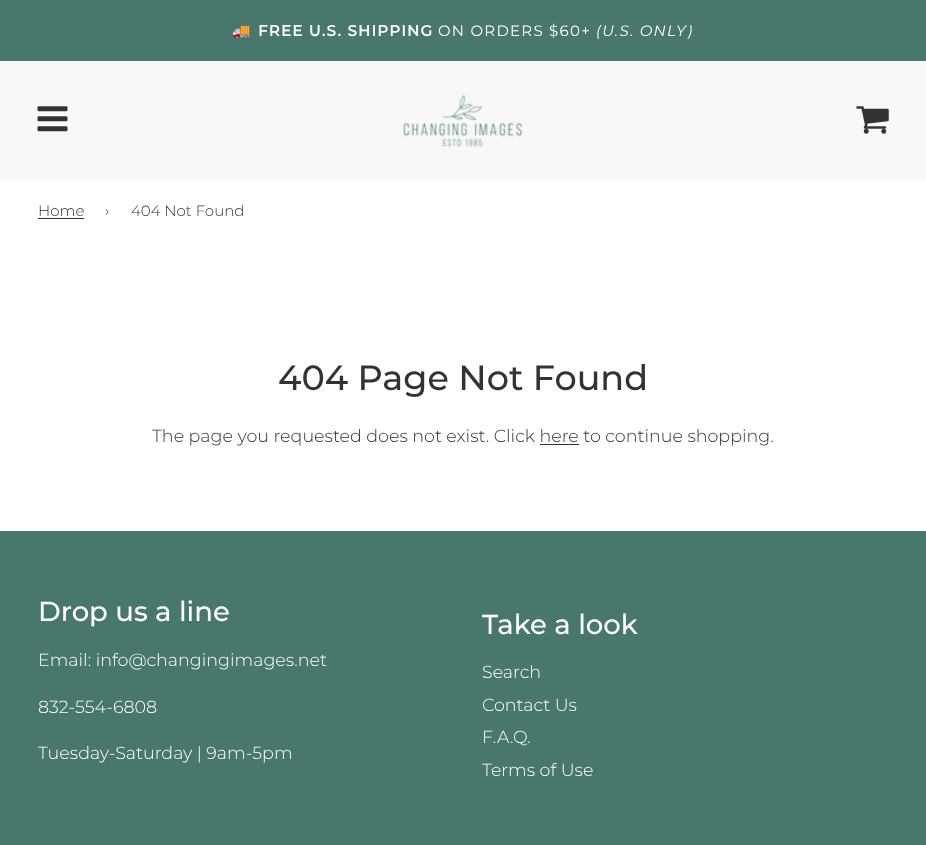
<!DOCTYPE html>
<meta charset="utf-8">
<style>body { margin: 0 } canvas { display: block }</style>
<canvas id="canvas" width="926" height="845"></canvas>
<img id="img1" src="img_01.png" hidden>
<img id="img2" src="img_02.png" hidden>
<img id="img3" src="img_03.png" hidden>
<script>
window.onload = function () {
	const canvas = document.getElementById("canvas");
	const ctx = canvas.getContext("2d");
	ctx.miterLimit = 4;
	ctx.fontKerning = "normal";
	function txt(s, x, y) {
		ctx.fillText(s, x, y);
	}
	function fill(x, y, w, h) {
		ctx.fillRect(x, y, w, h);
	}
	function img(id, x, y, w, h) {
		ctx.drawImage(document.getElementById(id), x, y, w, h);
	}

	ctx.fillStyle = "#FFFFFF";
	fill(0, 0, 926, 845);
	ctx.fillStyle = "#48786D";
	fill(0, 0, 926, 61);
	ctx.fillStyle = "#F8F8F8";
	fill(0, 61, 926, 119);
	img("img1", 37, 106, 31, 26);
	img("img2", 403, 95, 120, 52);
	img("img3", 856, 106, 33, 28);
	ctx.fillStyle = "#333333";
	fill(38, 218, 46, 1);
	fill(540, 444, 39, 1);
	ctx.fillStyle = "#48786D";
	fill(0, 531, 926, 314);
	ctx.letterSpacing = "1.25px";
	ctx.font = "15px Noto Color Emoji";
	ctx.fillStyle = "#FFFFFF";
	txt("🚚", 232, 36);
	ctx.font = "bold 15px Montserrat";
	txt("FREE U.S. SHIPPING", 258, 36);
	ctx.font = "15px Montserrat";
	txt("ON ORDERS $60+", 438, 36);
	ctx.font = "italic 15px Montserrat";
	txt("(U.S. ONLY)", 596, 36);
	ctx.letterSpacing = "0px";
	ctx.font = "300 15px Montserrat";
	ctx.fillStyle = "#333333";
	txt("Home", 38, 216);
	txt("›", 105, 216);
	txt("404 Not Found", 131, 216);
	ctx.font = "500 35px Montserrat";
	txt("404 Page Not Found", 278, 390);
	ctx.font = "300 17.5px Montserrat";
	txt("The page you requested does not exist. Click here to continue shopping.", 152, 442);
	ctx.font = "500 27.5px Montserrat";
	ctx.fillStyle = "#FFFFFF";
	txt("Drop us a line", 38, 621);
	ctx.font = "300 17.5px Montserrat";
	txt("Email: info@changingimages.net", 38, 666);
	txt("832-554-6808", 38, 713);
	txt("Tuesday-Saturday | 9am-5pm", 38, 759);
	ctx.font = "500 27.5px Montserrat";
	txt("Take a look", 482, 634);
	ctx.font = "300 17.5px Montserrat";
	txt("Search", 482, 678);
	txt("Contact Us", 482, 711);
	txt("F.A.Q.", 482, 743);
	txt("Terms of Use", 482, 776);
};
</script>
